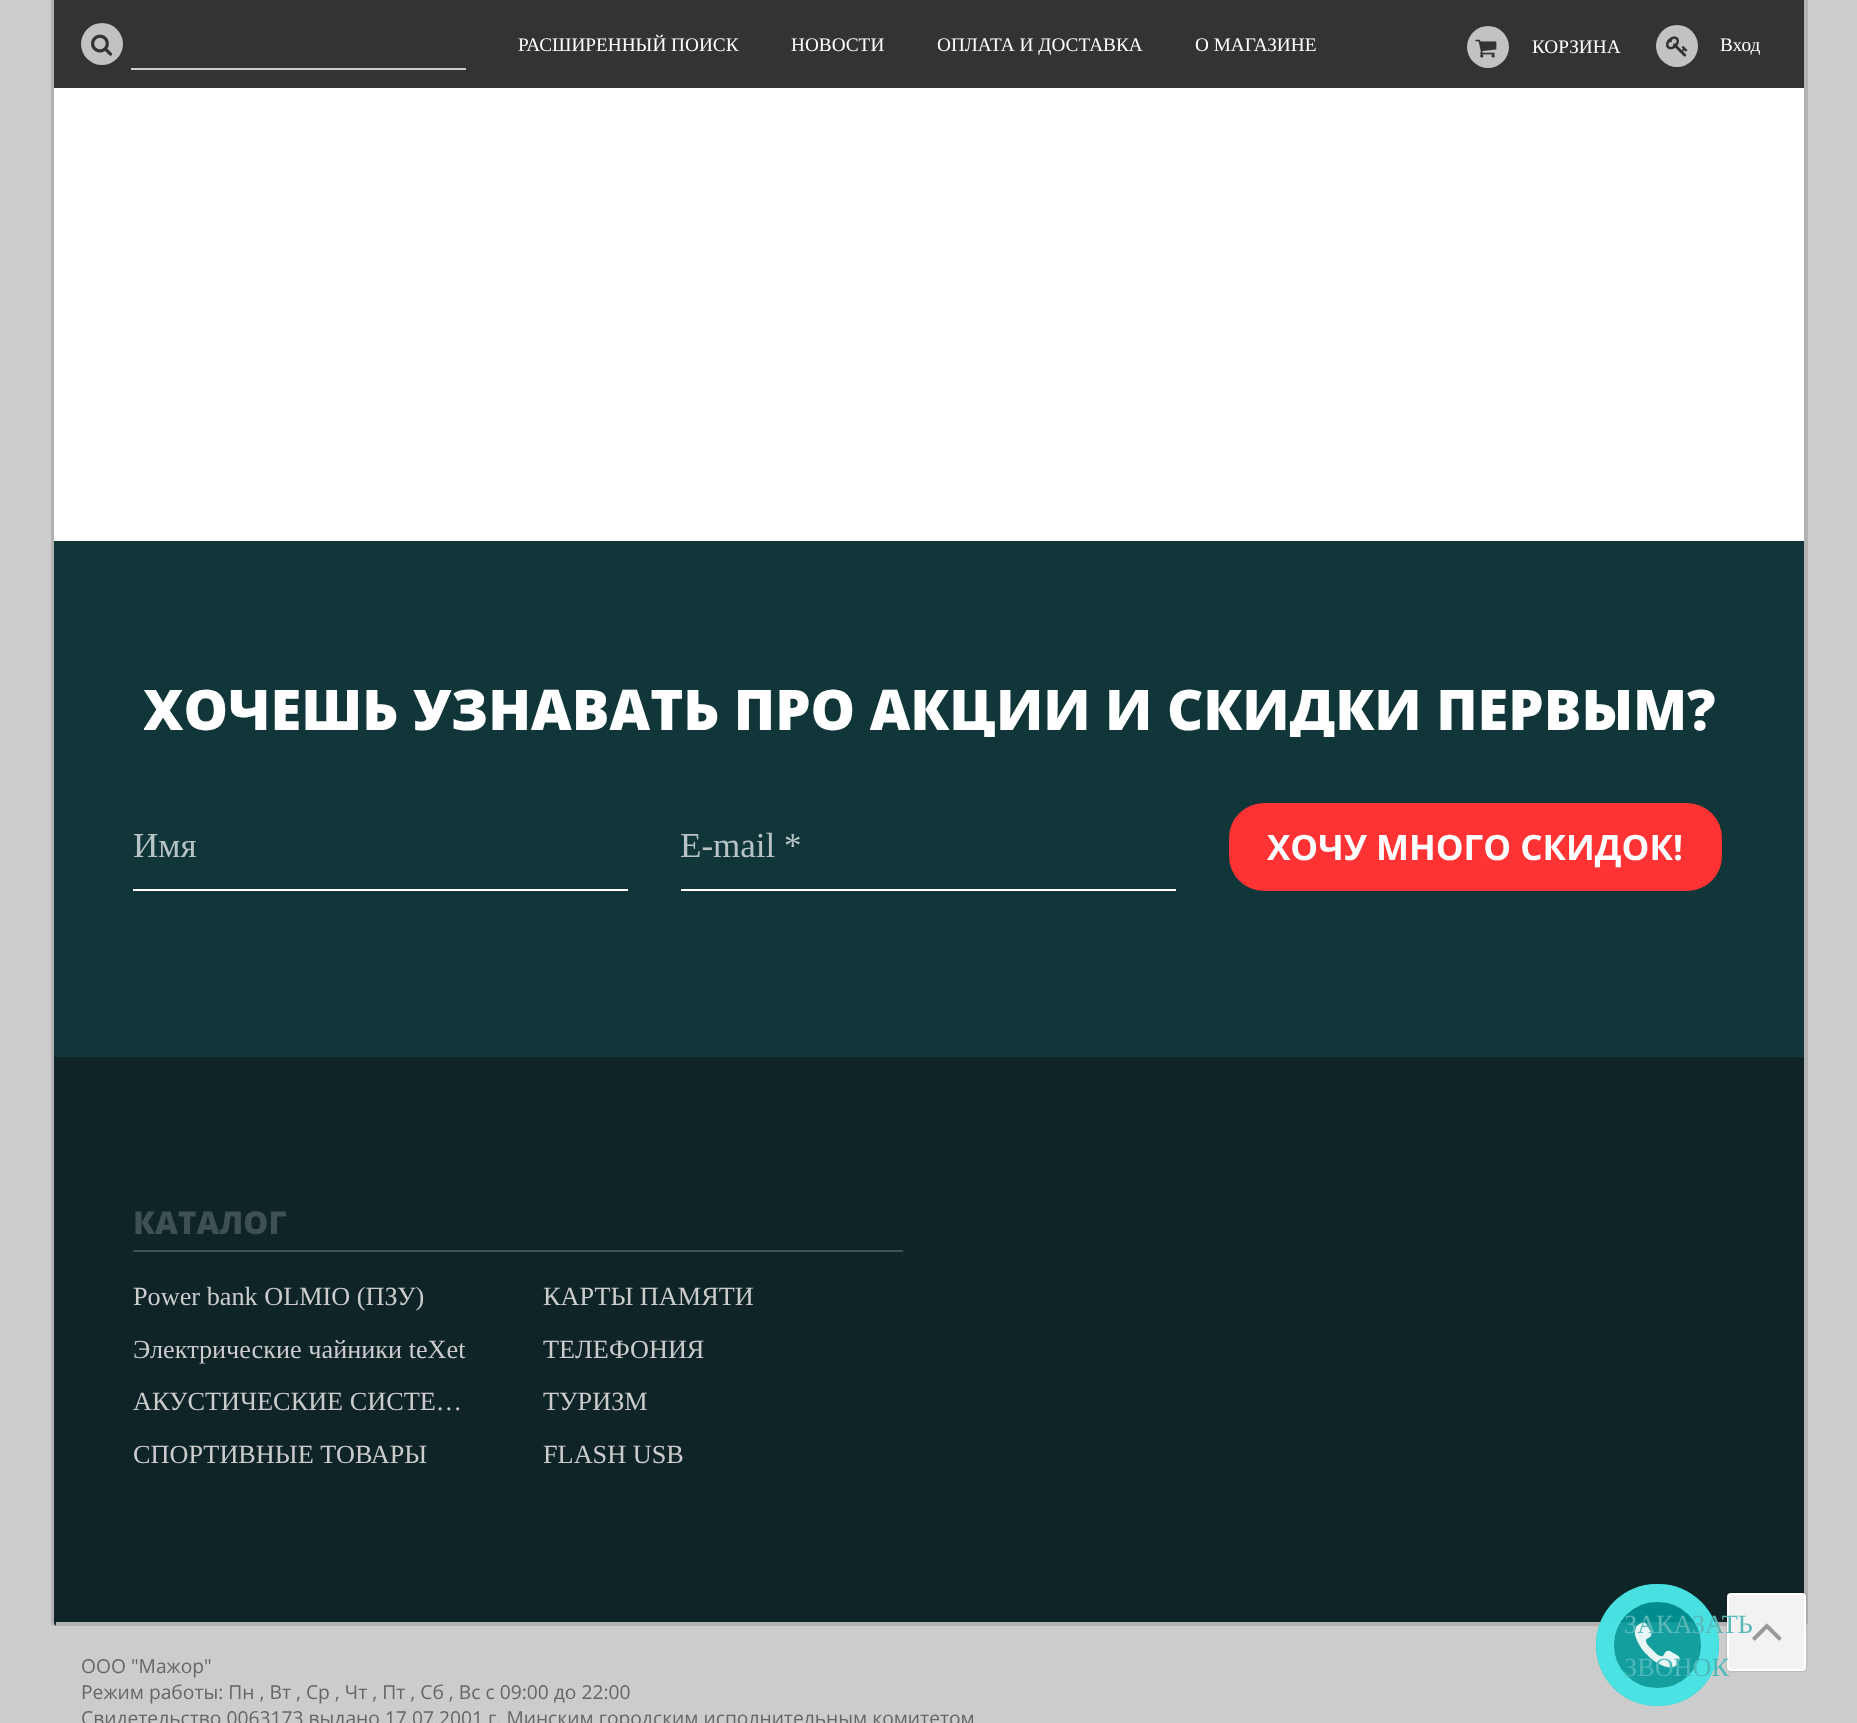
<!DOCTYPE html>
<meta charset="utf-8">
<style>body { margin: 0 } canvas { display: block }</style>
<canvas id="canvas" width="1857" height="1723"></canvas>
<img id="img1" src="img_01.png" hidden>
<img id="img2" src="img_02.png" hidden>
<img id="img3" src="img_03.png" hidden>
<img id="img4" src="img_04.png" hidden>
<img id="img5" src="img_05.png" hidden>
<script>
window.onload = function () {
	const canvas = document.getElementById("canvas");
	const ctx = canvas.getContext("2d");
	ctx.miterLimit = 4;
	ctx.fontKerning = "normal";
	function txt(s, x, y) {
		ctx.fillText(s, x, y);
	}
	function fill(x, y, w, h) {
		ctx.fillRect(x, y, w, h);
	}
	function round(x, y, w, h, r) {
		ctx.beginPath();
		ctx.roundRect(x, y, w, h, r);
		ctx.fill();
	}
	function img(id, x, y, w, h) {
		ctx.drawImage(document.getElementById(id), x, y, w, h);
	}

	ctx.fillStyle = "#CCCCCC";
	fill(0, 0, 1857, 1723);
	ctx.fillStyle = "#B2B2B2";
	ctx.beginPath();
	ctx.moveTo(58, -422);
	ctx.lineTo(1804, -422);
	ctx.lineTo(1804, 541);
	ctx.lineTo(58, 541);
	ctx.lineTo(1808, 541);
	ctx.lineTo(1808, -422);
	ctx.closePath();
	ctx.fill();
	ctx.beginPath();
	ctx.moveTo(51, -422);
	ctx.lineTo(51, 541);
	ctx.lineTo(1801, 541);
	ctx.lineTo(54, 541);
	ctx.lineTo(54, -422);
	ctx.lineTo(1801, -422);
	ctx.closePath();
	ctx.fill();
	ctx.fillStyle = "#FFFFFF";
	fill(54, 88, 1750, 453);
	ctx.fillStyle = "#333333";
	fill(54, 0, 1750, 88);
	ctx.fillStyle = "#C2C2C2";
	ctx.beginPath();
	ctx.arc(102, 44, 21, 0, Math.PI * 2);
	ctx.fill();
	img("img1", 91, 34, 22, 22);
	ctx.fillStyle = "#CCCCCC";
	fill(131, 68, 335, 2);
	ctx.fillStyle = "#C2C2C2";
	ctx.beginPath();
	ctx.arc(1488, 47, 21, 0, Math.PI * 2);
	ctx.fill();
	img("img2", 1475, 39, 22, 19);
	ctx.beginPath();
	ctx.arc(1677, 46, 21, 0, Math.PI * 2);
	ctx.fill();
	img("img3", 1666, 36, 22, 21);
	ctx.fillStyle = "#B2B2B2";
	fill(1804, 541, 4, 516);
	fill(51, 541, 3, 516);
	ctx.fillStyle = "#10363A";
	fill(54, 541, 1750, 516);
	ctx.fillStyle = "#FFFFFF";
	fill(133, 889, 495, 2);
	fill(681, 889, 495, 2);
	ctx.fillStyle = "#FF3333";
	round(1229, 803, 493, 88, 35);
	ctx.fillStyle = "#B2B2B2";
	ctx.beginPath();
	ctx.moveTo(61, 1626);
	ctx.lineTo(1804, 1626);
	ctx.bezierCurveTo(1806, 1626, 1808, 1624, 1808, 1622);
	ctx.lineTo(1808, 1057);
	ctx.lineTo(1804, 1057);
	ctx.lineTo(1804, 1622);
	ctx.bezierCurveTo(1804, 1624, 1803, 1626, 1801, 1626);
	ctx.closePath();
	ctx.fill();
	ctx.beginPath();
	ctx.moveTo(51, 1057);
	ctx.lineTo(51, 1622);
	ctx.bezierCurveTo(51, 1624, 53, 1626, 55, 1626);
	ctx.lineTo(1798, 1626);
	ctx.lineTo(58, 1626);
	ctx.bezierCurveTo(56, 1626, 54, 1624, 54, 1622);
	ctx.lineTo(54, 1057);
	ctx.closePath();
	ctx.fill();
	ctx.fillStyle = "#0E2427";
	ctx.beginPath();
	ctx.roundRect(54, 1057, 1750, 569, [0, 0, 4, 4]);
	ctx.fill();
	ctx.fillStyle = "#B2B2B2";
	fill(56, 1622, 1671, 4);
	ctx.fillStyle = "#3E5052";
	fill(133, 1250, 770, 2);
	ctx.fillStyle = "rgba(0, 0, 0, 0.2)";
	ctx.filter = "blur(1px)";
	ctx.beginPath();
	ctx.roundRect(1727, 1593, 79, 78, 4);
	ctx.fill();
	ctx.filter = "none";
	ctx.fillStyle = "#F2F2F2";
	ctx.beginPath();
	ctx.roundRect(1728, 1594, 77, 76, 3);
	ctx.fill();
	ctx.strokeStyle = "#FFFFFF";
	ctx.lineWidth = 2;
	ctx.stroke();
	img("img4", 1752, 1623, 30, 18);
	ctx.fillStyle = "rgba(0, 153, 153, 0.9)";
	round(1596, 1584, 123, 122, 61);
	img("img5", 1634, 1622, 46, 46);
	ctx.beginPath();
	ctx.roundRect(1605, 1593, 105, 104, 52);
	ctx.strokeStyle = "rgba(80, 233, 233, 0.9)";
	ctx.lineWidth = 18;
	ctx.stroke();
	ctx.font = "19.25px Liberation Serif";
	ctx.fillStyle = "#FFFFFF";
	txt("РАСШИРЕННЫЙ ПОИСК", 518, 51);
	txt("НОВОСТИ", 791, 51);
	txt("ОПЛАТА И ДОСТАВКА", 937, 51);
	txt("О МАГАЗИНЕ", 1195, 51);
	txt("КОРЗИНА", 1532, 53);
	txt("Вход", 1720, 51);
	ctx.save();
	ctx.beginPath();
	ctx.rect(144, 681, 1571, 56);
	ctx.clip();
	ctx.font = "800 56px Open Sans";
	txt("ХОЧЕШЬ УЗНАВАТЬ ПРО АКЦИИ И СКИДКИ ПЕРВЫМ?", 143, 730);
	ctx.restore();
	ctx.font = "35px Liberation Serif";
	ctx.fillStyle = "#B7C3C4";
	txt("Имя", 133, 857);
	txt("E-mail *", 680, 857);
	ctx.font = "bold 35px Open Sans";
	ctx.fillStyle = "#FFFFFF";
	txt("ХОЧУ МНОГО СКИДОК!", 1267, 860);
	ctx.font = "800 31.5px Open Sans";
	ctx.fillStyle = "#3E5052";
	txt("КАТАЛОГ", 133, 1234);
	ctx.font = "26.25px Liberation Serif";
	ctx.fillStyle = "#CCCCCC";
	txt("Power bank OLMIO (ПЗУ)", 133, 1305);
	txt("КАРТЫ ПАМЯТИ", 543, 1305);
	txt("Электрические чайники teXet", 133, 1358);
	txt("TEЛЕФОНИЯ", 543, 1358);
	txt("АКУСТИЧЕСКИЕ СИСТЕ…", 133, 1410);
	txt("ТУРИЗМ", 543, 1410);
	txt("СПОРТИВНЫЕ ТОВАРЫ", 133, 1463);
	txt("FLASH USB", 543, 1463);
	ctx.font = "19.25px Open Sans";
	ctx.fillStyle = "#666666";
	txt("ООО \"Мажор\"", 81, 1673);
	txt("Режим работы: Пн , Вт , Ср , Чт , Пт , Сб , Вс c 09:00 до 22:00", 81, 1699);
	txt("Свидетельство 0063173 выдано 17.07.2001 г. Минским городским исполнительным комитетом", 81, 1725);
	ctx.font = "26.25px Liberation Serif";
	ctx.fillStyle = "#5CB8B8";
	txt("ЗАКАЗАТЬ", 1624, 1633);
	ctx.fillStyle = "#4CB9B9";
	txt("ЗВОНОК", 1624, 1676);
};
</script>
